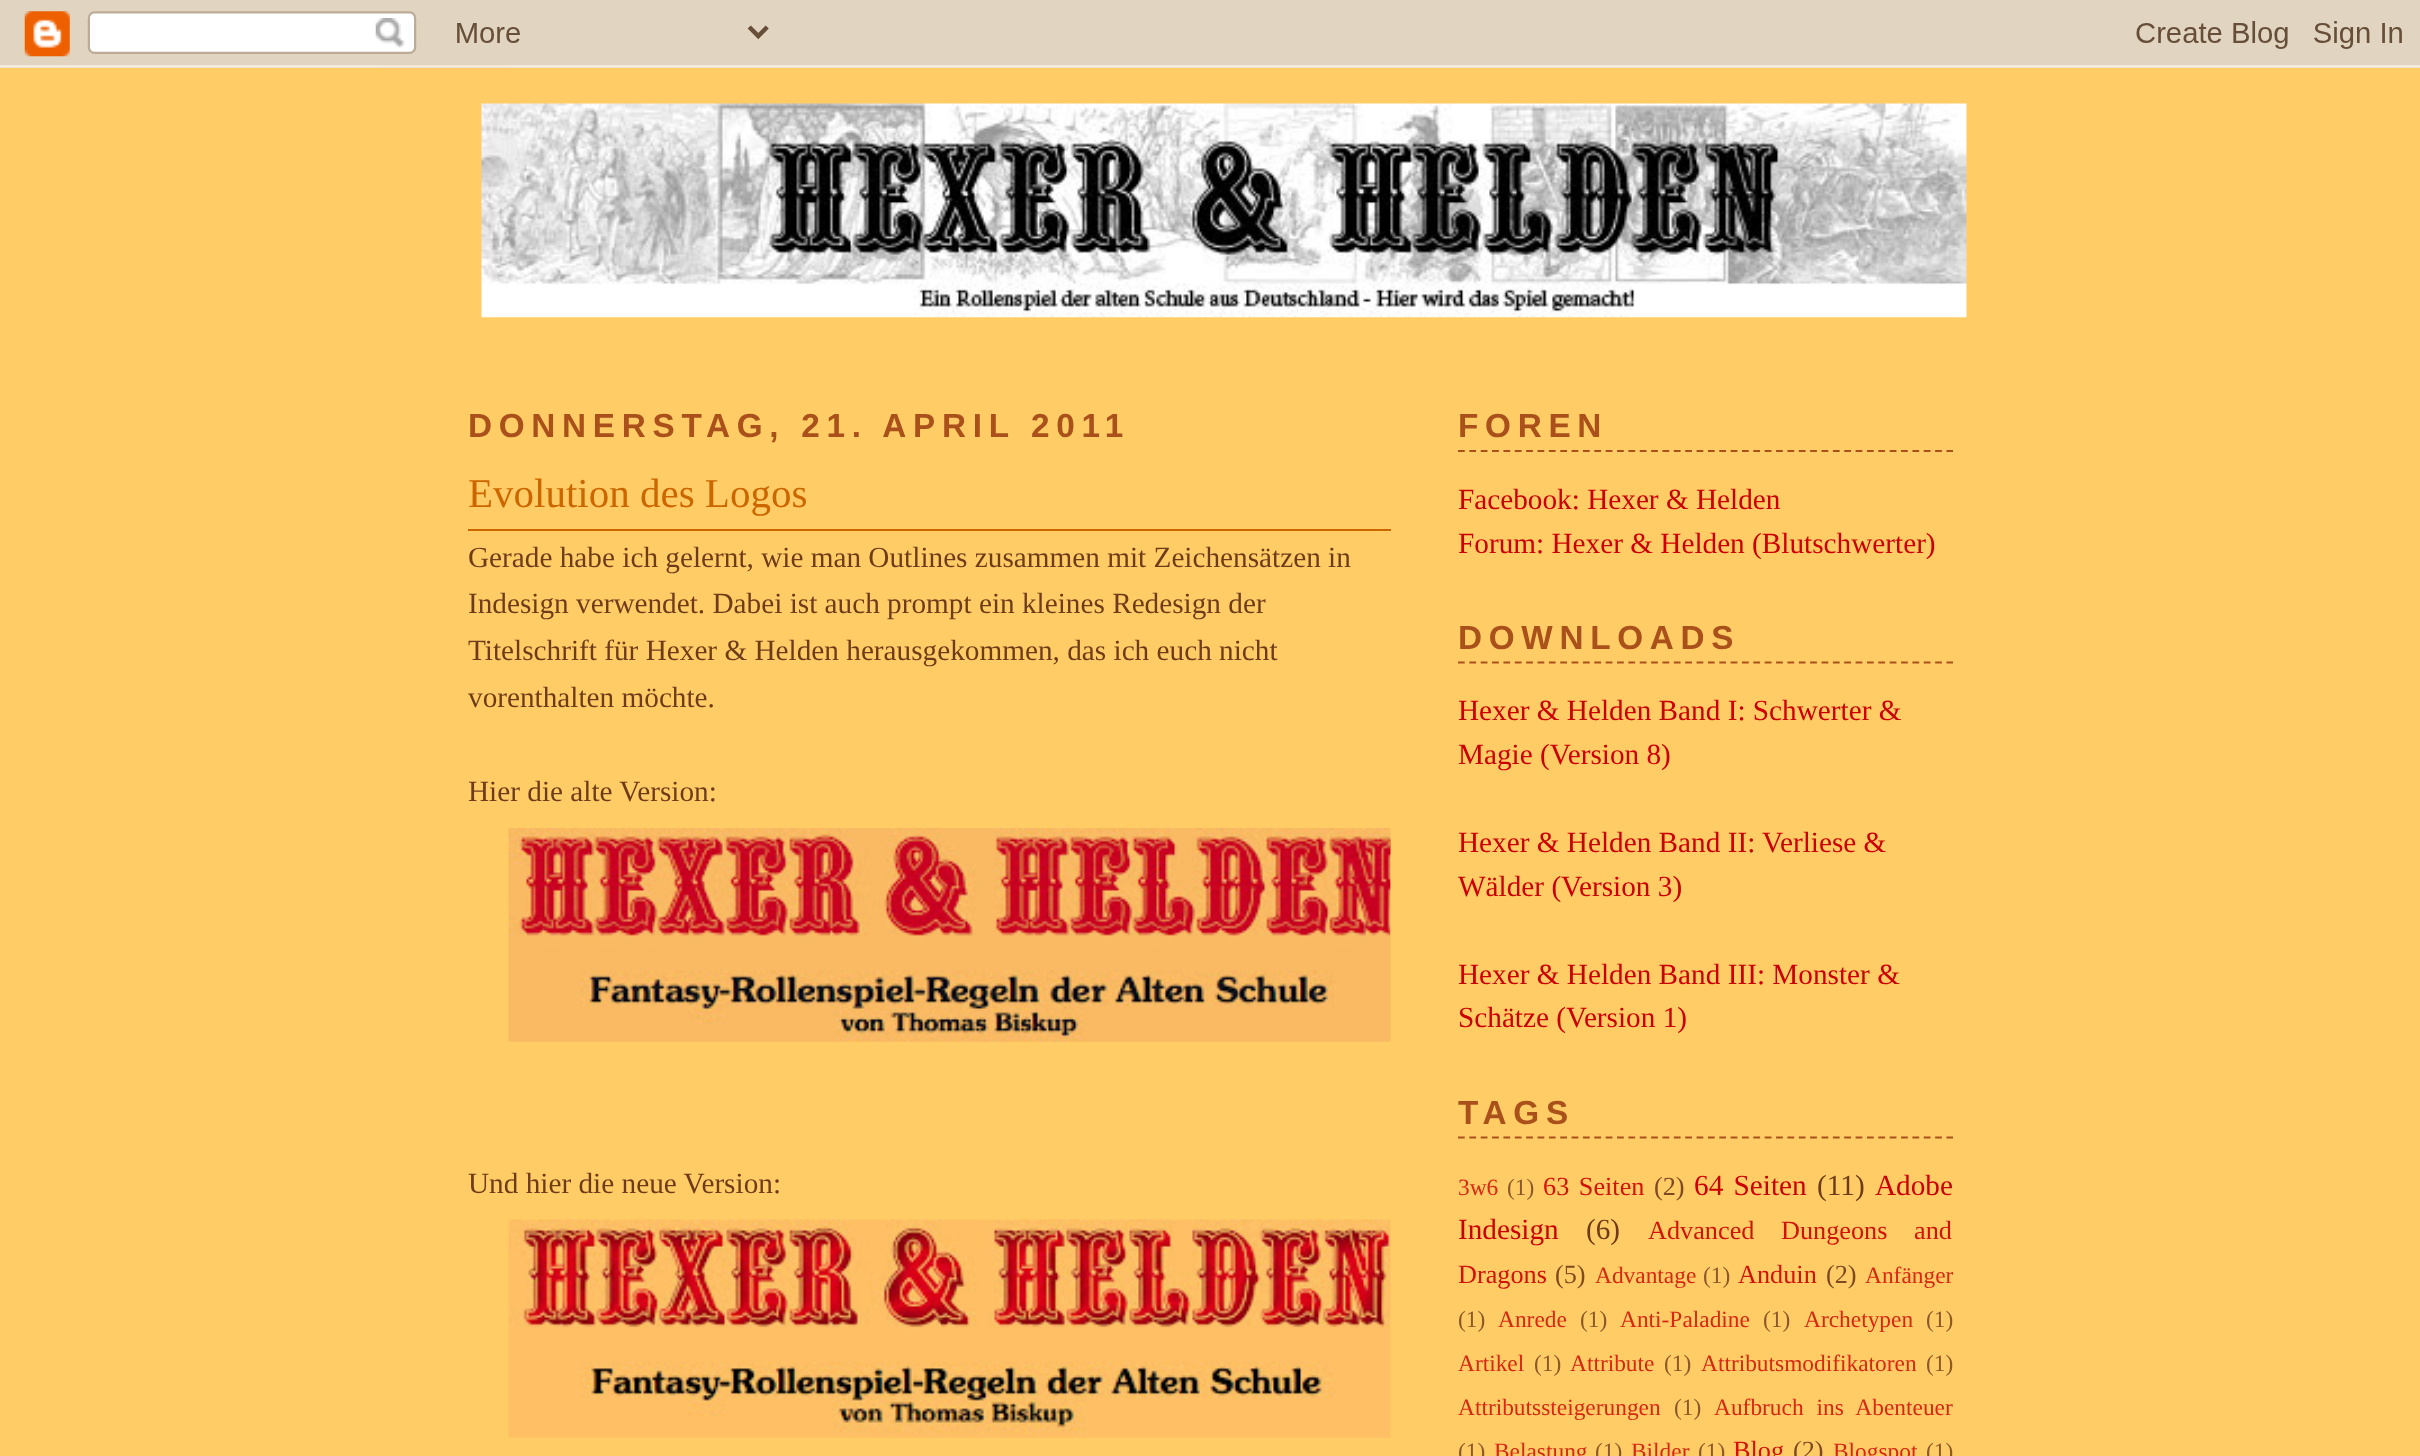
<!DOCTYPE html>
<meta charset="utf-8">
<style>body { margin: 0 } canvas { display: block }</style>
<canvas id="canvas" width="2420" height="1456"></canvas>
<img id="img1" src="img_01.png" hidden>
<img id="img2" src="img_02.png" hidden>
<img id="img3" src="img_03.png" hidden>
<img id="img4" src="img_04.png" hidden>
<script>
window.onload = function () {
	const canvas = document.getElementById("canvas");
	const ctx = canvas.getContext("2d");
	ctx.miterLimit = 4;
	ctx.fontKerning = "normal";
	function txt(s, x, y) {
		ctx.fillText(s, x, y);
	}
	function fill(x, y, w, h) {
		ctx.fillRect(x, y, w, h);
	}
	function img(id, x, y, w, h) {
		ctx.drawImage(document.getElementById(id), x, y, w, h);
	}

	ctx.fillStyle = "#FFCC66";
	fill(0, 0, 2420, 1456);
	img("img1", 0, 0, 2420, 68);
	img("img2", 481, 103, 1486, 215);
	ctx.fillStyle = "#CC6600";
	fill(468, 529, 923, 2);
	img("img3", 508, 828, 883, 214);
	img("img4", 508, 1219, 883, 219);
	ctx.beginPath();
	ctx.moveTo(1458, 451);
	ctx.lineTo(1953, 451);
	ctx.strokeStyle = "#A9501B";
	ctx.lineWidth = 2.2;
	ctx.setLineDash([6.75, 4.61]);
	ctx.stroke();
	ctx.beginPath();
	ctx.moveTo(1458, 662.5);
	ctx.lineTo(1953, 662.5);
	ctx.stroke();
	ctx.beginPath();
	ctx.moveTo(1458, 1137.5);
	ctx.lineTo(1953, 1137.5);
	ctx.stroke();
	ctx.letterSpacing = "6.7px";
	ctx.font = "bold 33.3px Liberation Sans";
	ctx.fillStyle = "#A9501B";
	txt("DONNERSTAG, 21. APRIL 2011", 468, 437);
	ctx.letterSpacing = "0px";
	ctx.font = "41px Liberation Serif";
	ctx.fillStyle = "#CC6600";
	txt("Evolution des Logos", 468, 507);
	ctx.font = "29.25px Liberation Serif";
	ctx.fillStyle = "#6F3C1B";
	txt("Gerade habe ich gelernt, wie man Outlines zusammen mit Zeichensätzen in", 468, 567);
	txt("Indesign verwendet. Dabei ist auch prompt ein kleines Redesign der", 468, 613);
	txt("Titelschrift für Hexer & Helden herausgekommen, das ich euch nicht", 468, 660);
	txt("vorenthalten möchte.", 468, 707);
	txt("Hier die alte Version:", 468, 801);
	txt("Und hier die neue Version:", 468, 1193);
	ctx.letterSpacing = "6.7px";
	ctx.font = "bold 33.3px Liberation Sans";
	ctx.fillStyle = "#A9501B";
	txt("FOREN", 1458, 437);
	ctx.letterSpacing = "0px";
	ctx.font = "29.25px Liberation Serif";
	ctx.fillStyle = "#CC0000";
	txt("Facebook: Hexer & Helden", 1458, 509);
	txt("Forum: Hexer & Helden (Blutschwerter)", 1458, 553);
	ctx.letterSpacing = "6.7px";
	ctx.font = "bold 33.3px Liberation Sans";
	ctx.fillStyle = "#A9501B";
	txt("DOWNLOADS", 1458, 649);
	ctx.letterSpacing = "0px";
	ctx.font = "29.25px Liberation Serif";
	ctx.fillStyle = "#CC0000";
	txt("Hexer & Helden Band I: Schwerter &", 1458, 720);
	txt("Magie (Version 8)", 1458, 764);
	txt("Hexer & Helden Band II: Verliese &", 1458, 852);
	txt("Wälder (Version 3)", 1458, 896);
	txt("Hexer & Helden Band III: Monster &", 1458, 984);
	txt("Schätze (Version 1)", 1458, 1027);
	ctx.letterSpacing = "6.7px";
	ctx.font = "bold 33.3px Liberation Sans";
	ctx.fillStyle = "#A9501B";
	txt("TAGS", 1458, 1124);
	ctx.letterSpacing = "0px";
	ctx.font = "23.4px Liberation Serif";
	ctx.fillStyle = "#D62914";
	txt("3w6", 1458, 1195);
	ctx.fillStyle = "#8C592A";
	txt("(1)", 1507, 1195);
	ctx.wordSpacing = "3px";
	ctx.font = "26.25px Liberation Serif";
	ctx.fillStyle = "#D1140A";
	txt("63 Seiten", 1543, 1195);
	ctx.wordSpacing = "0px";
	ctx.fillStyle = "#7D4A23";
	txt("(2)", 1654, 1195);
	ctx.wordSpacing = "3px";
	ctx.font = "29.25px Liberation Serif";
	ctx.fillStyle = "#CC0000";
	txt("64 Seiten", 1694, 1195);
	ctx.wordSpacing = "0px";
	ctx.fillStyle = "#6F3C1B";
	txt("(11)", 1817, 1195);
	ctx.fillStyle = "#CC0000";
	txt("Adobe", 1875, 1195);
	txt("Indesign", 1458, 1239);
	ctx.fillStyle = "#6F3C1B";
	txt("(6)", 1586, 1239);
	ctx.wordSpacing = "20px";
	ctx.font = "26.25px Liberation Serif";
	ctx.fillStyle = "#D1140A";
	txt("Advanced Dungeons and", 1648, 1239);
	ctx.wordSpacing = "0px";
	txt("Dragons", 1458, 1283);
	ctx.fillStyle = "#7D4A23";
	txt("(5)", 1555, 1283);
	ctx.font = "23.4px Liberation Serif";
	ctx.fillStyle = "#D62914";
	txt("Advantage", 1595, 1283);
	ctx.fillStyle = "#8C592A";
	txt("(1)", 1703, 1283);
	ctx.font = "26.25px Liberation Serif";
	ctx.fillStyle = "#D1140A";
	txt("Anduin", 1738, 1283);
	ctx.fillStyle = "#7D4A23";
	txt("(2)", 1826, 1283);
	ctx.font = "23.4px Liberation Serif";
	ctx.fillStyle = "#D62914";
	txt("Anfänger", 1865, 1283);
	ctx.fillStyle = "#8C592A";
	txt("(1)", 1458, 1327);
	ctx.fillStyle = "#D62914";
	txt("Anrede", 1498, 1327);
	ctx.fillStyle = "#8C592A";
	txt("(1)", 1580, 1327);
	ctx.fillStyle = "#D62914";
	txt("Anti-Paladine", 1620, 1327);
	ctx.fillStyle = "#8C592A";
	txt("(1)", 1763, 1327);
	ctx.fillStyle = "#D62914";
	txt("Archetypen", 1804, 1327);
	ctx.fillStyle = "#8C592A";
	txt("(1)", 1926, 1327);
	ctx.fillStyle = "#D62914";
	txt("Artikel", 1458, 1371);
	ctx.fillStyle = "#8C592A";
	txt("(1)", 1534, 1371);
	ctx.fillStyle = "#D62914";
	txt("Attribute", 1570, 1371);
	ctx.fillStyle = "#8C592A";
	txt("(1)", 1664, 1371);
	ctx.fillStyle = "#D62914";
	txt("Attributsmodifikatoren", 1701, 1371);
	ctx.fillStyle = "#8C592A";
	txt("(1)", 1926, 1371);
	ctx.fillStyle = "#D62914";
	txt("Attributssteigerungen", 1458, 1415);
	ctx.fillStyle = "#8C592A";
	txt("(1)", 1674, 1415);
	ctx.wordSpacing = "7px";
	ctx.fillStyle = "#D62914";
	txt("Aufbruch ins Abenteuer", 1714, 1415);
	ctx.wordSpacing = "0px";
	ctx.fillStyle = "#8C592A";
	txt("(1)", 1458, 1459);
	ctx.fillStyle = "#D62914";
	txt("Belastung", 1494, 1459);
	ctx.fillStyle = "#8C592A";
	txt("(1)", 1595, 1459);
	ctx.fillStyle = "#D62914";
	txt("Bilder", 1631, 1459);
	ctx.fillStyle = "#8C592A";
	txt("(1)", 1698, 1459);
	ctx.font = "26.25px Liberation Serif";
	ctx.fillStyle = "#D1140A";
	txt("Blog", 1733, 1459);
	ctx.fillStyle = "#7D4A23";
	txt("(2)", 1793, 1459);
	ctx.font = "23.4px Liberation Serif";
	ctx.fillStyle = "#D62914";
	txt("Blogspot", 1833, 1459);
	ctx.fillStyle = "#8C592A";
	txt("(1)", 1926, 1459);
};
</script>
